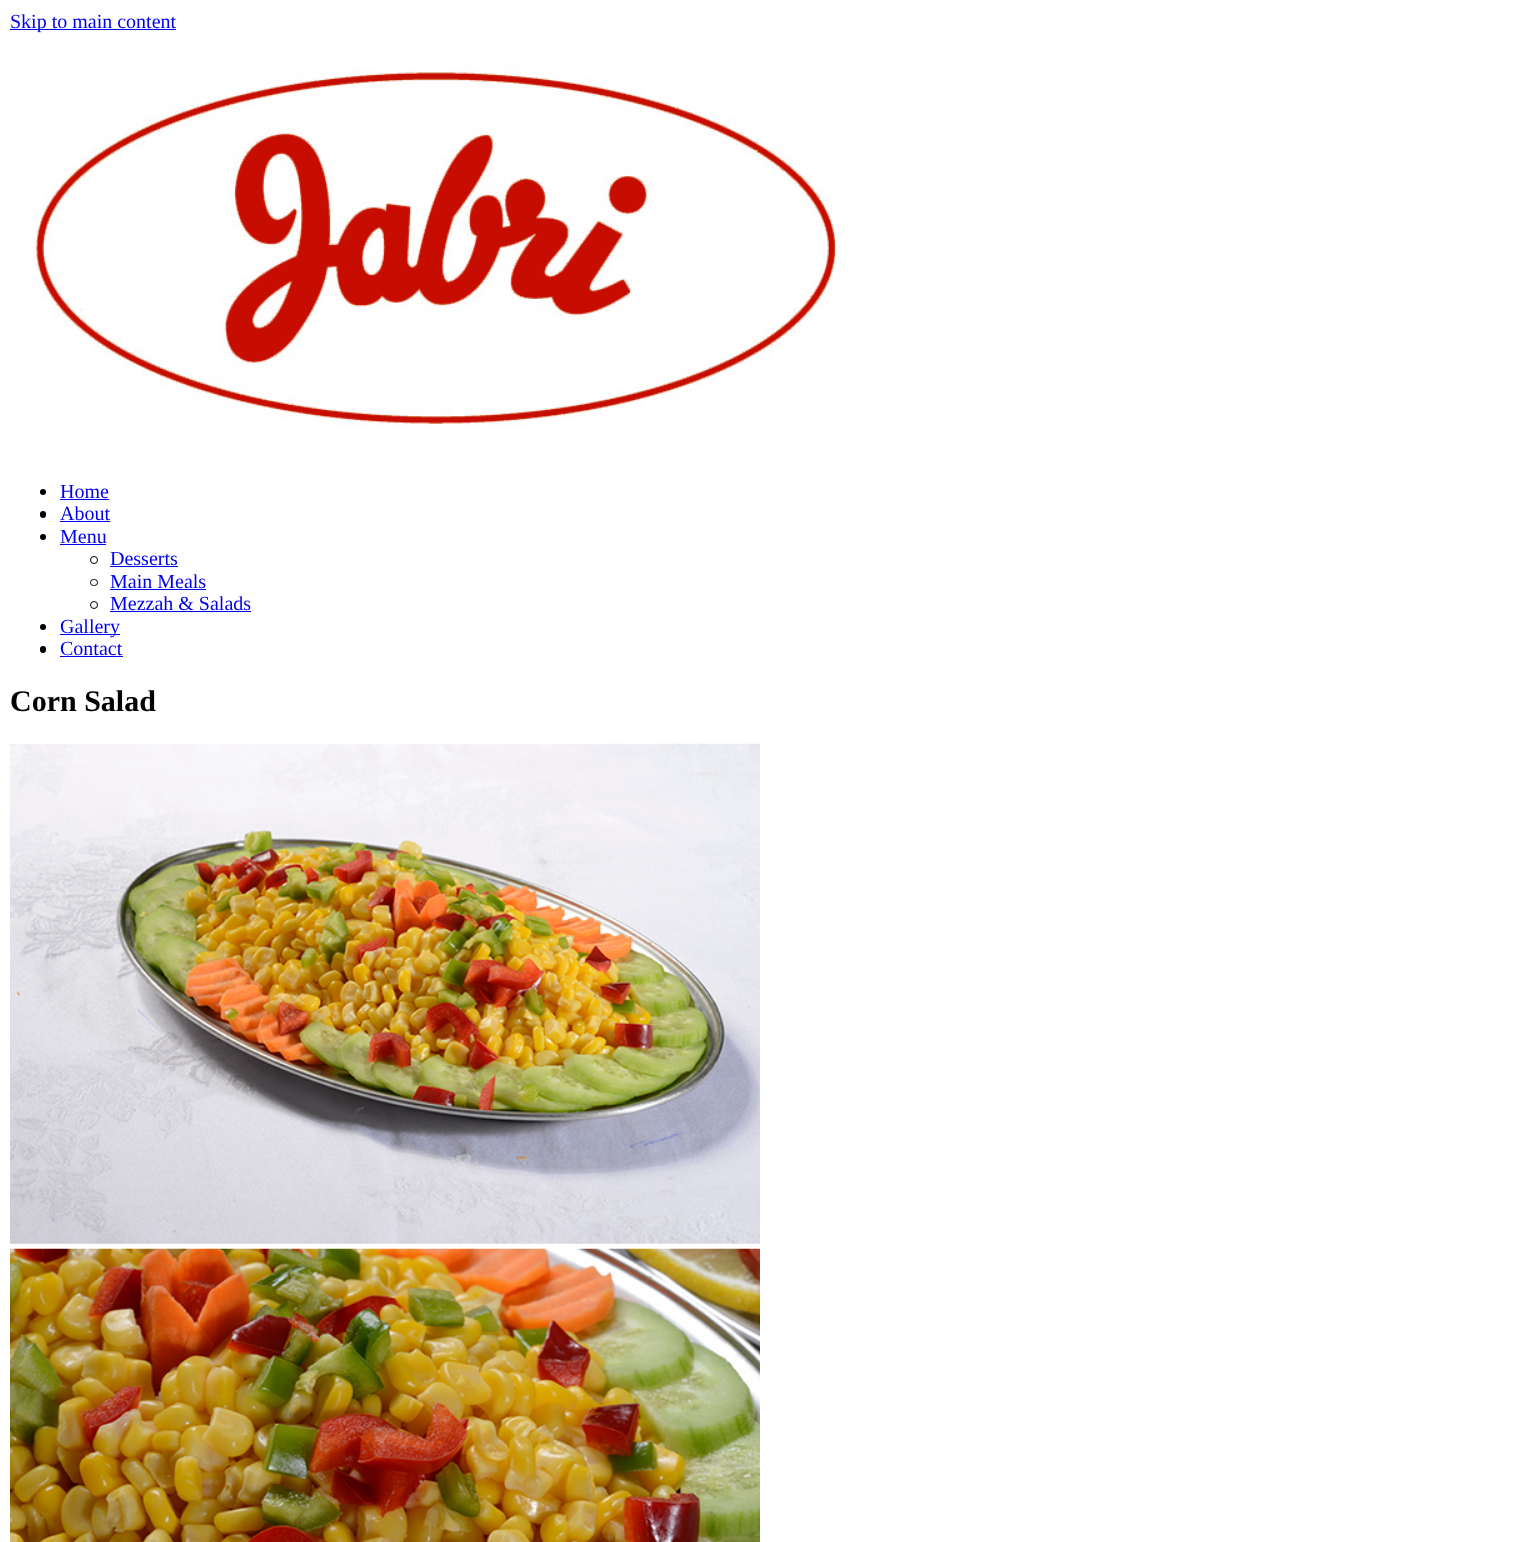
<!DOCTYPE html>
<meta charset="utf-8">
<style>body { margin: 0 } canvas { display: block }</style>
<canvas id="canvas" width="1523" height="1542"></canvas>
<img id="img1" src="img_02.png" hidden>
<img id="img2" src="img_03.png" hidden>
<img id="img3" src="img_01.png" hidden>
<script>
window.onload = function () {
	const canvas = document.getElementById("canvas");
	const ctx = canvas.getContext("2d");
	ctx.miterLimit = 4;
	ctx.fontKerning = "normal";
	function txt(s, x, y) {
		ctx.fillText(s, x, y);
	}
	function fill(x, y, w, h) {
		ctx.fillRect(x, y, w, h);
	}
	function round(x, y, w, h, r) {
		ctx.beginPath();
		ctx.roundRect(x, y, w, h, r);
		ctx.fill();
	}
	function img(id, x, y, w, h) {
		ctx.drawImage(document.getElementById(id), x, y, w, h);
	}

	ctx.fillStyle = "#FFFFFF";
	fill(0, 0, 1523, 1542);
	ctx.fillStyle = "#0000EE";
	fill(10, 29, 166, 1);
	ctx.fillStyle = "#000000";
	ctx.beginPath();
	ctx.arc(43, 492, 3, 0, Math.PI * 2);
	ctx.fill();
	ctx.fillStyle = "#0000EE";
	fill(60, 499, 49, 1);
	ctx.fillStyle = "#000000";
	round(40, 511, 6, 7, 3);
	ctx.fillStyle = "#0000EE";
	fill(60, 521, 50, 1);
	ctx.fillStyle = "#000000";
	ctx.beginPath();
	ctx.arc(43, 537, 3, 0, Math.PI * 2);
	ctx.fill();
	ctx.fillStyle = "#0000EE";
	fill(60, 544, 46, 1);
	ctx.beginPath();
	ctx.arc(94, 560, 3.5, 0, Math.PI * 2);
	ctx.strokeStyle = "#000000";
	ctx.stroke();
	fill(110, 566, 68, 1);
	ctx.beginPath();
	ctx.roundRect(90.5, 579.5, 7, 6, 3);
	ctx.stroke();
	fill(110, 589, 96, 1);
	ctx.beginPath();
	ctx.arc(94, 605, 3.5, 0, Math.PI * 2);
	ctx.stroke();
	fill(110, 611, 141, 1);
	ctx.fillStyle = "#000000";
	ctx.beginPath();
	ctx.arc(43, 627, 3, 0, Math.PI * 2);
	ctx.fill();
	ctx.fillStyle = "#0000EE";
	fill(60, 634, 60, 1);
	ctx.fillStyle = "#000000";
	round(40, 646, 6, 7, 3);
	ctx.fillStyle = "#0000EE";
	fill(60, 656, 63, 1);
	img("img1", 10, 743, 750, 501);
	img("img2", 10, 1248, 750, 294);
	ctx.font = "20px Liberation Serif";
	txt("Skip to main content", 10, 28);
	img("img3", 33, 32, 808, 395);
	txt("Home", 60, 498);
	txt("About", 60, 520);
	txt("Menu", 60, 543);
	txt("Desserts", 110, 565);
	txt("Main Meals", 110, 588);
	txt("Mezzah & Salads", 110, 610);
	txt("Gallery", 60, 633);
	txt("Contact", 60, 655);
	ctx.font = "bold 30px Liberation Serif";
	ctx.fillStyle = "#000000";
	txt("Corn Salad", 10, 711);
};
</script>
